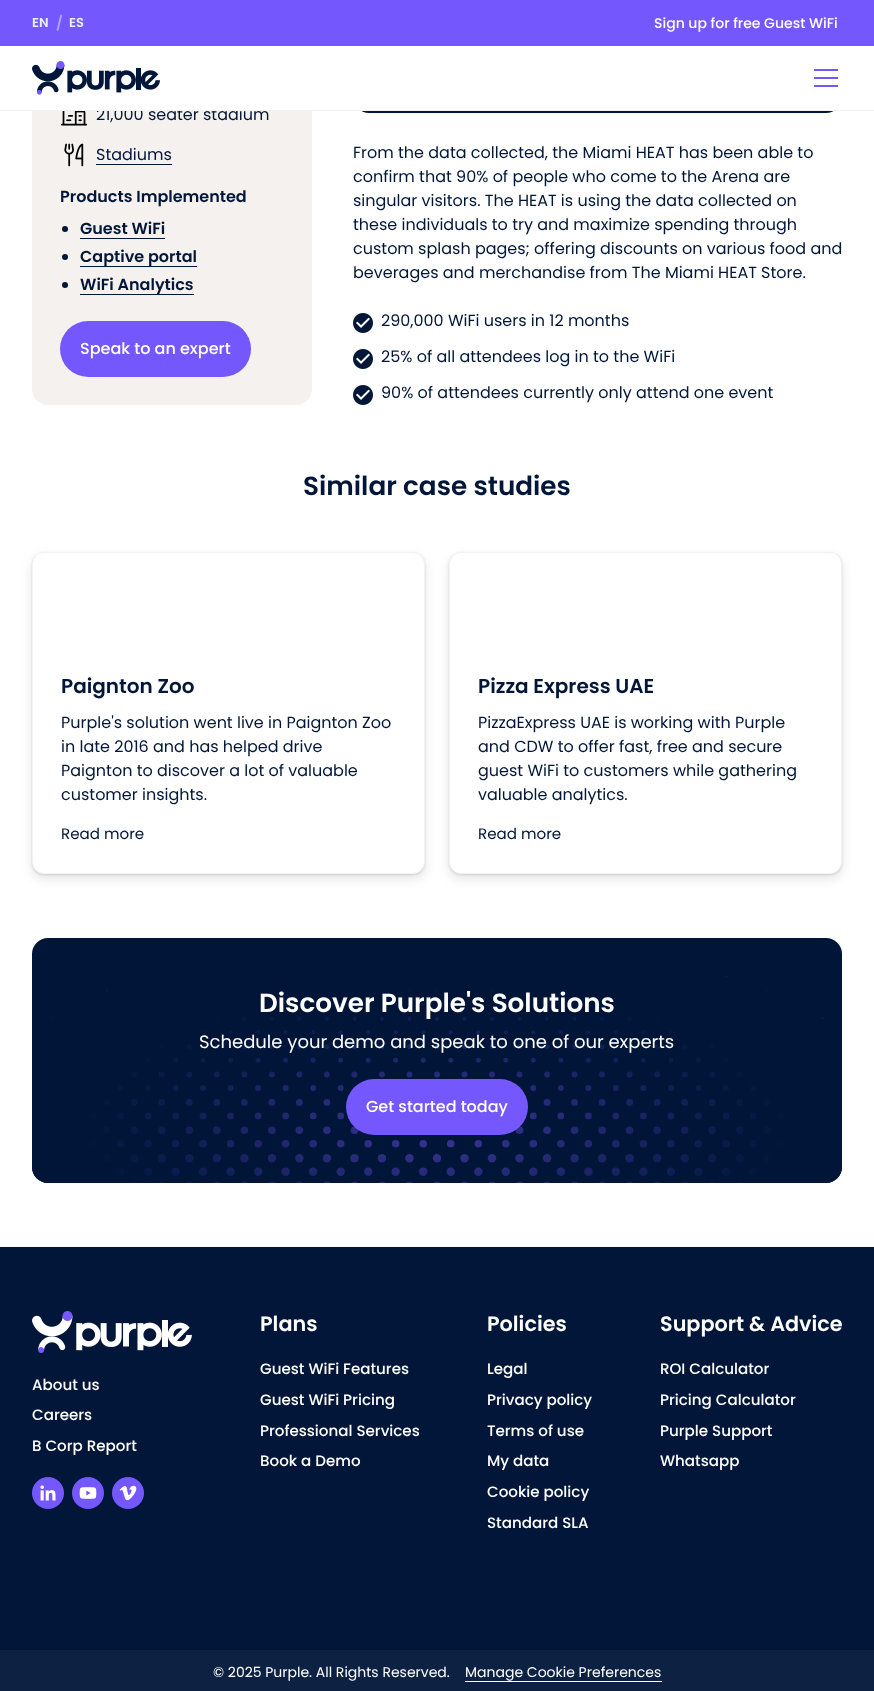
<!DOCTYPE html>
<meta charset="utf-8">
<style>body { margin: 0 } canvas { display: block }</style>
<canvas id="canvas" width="874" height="1691"></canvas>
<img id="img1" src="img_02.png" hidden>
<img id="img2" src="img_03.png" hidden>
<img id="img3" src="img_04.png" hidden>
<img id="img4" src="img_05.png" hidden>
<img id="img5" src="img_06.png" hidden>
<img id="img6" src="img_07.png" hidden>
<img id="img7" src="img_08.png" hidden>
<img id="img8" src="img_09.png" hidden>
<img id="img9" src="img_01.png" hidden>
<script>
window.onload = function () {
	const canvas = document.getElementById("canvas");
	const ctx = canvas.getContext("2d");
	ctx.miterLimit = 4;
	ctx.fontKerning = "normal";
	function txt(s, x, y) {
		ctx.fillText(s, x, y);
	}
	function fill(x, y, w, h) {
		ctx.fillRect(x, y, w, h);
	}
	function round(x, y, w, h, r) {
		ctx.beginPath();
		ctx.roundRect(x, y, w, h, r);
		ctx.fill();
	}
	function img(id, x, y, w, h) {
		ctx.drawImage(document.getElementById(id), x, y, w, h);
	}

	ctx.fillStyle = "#FFFFFF";
	fill(0, 0, 874, 1691);
	ctx.fillStyle = "#F5F1EE";
	round(32, 33, 280, 372, 16);
	ctx.fillStyle = "#011638";
	round(353, -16, 489, 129, 16);
	ctx.fillStyle = "#7458FD";
	fill(0, 0, 874, 46);
	img("img1", 60, 111, 28, 15);
	img("img2", 64, 143, 20, 24);
	ctx.fillStyle = "#011638";
	fill(96, 164, 76, 1);
	ctx.beginPath();
	ctx.arc(65, 229, 3, 0, Math.PI * 2);
	ctx.fill();
	fill(80, 238, 85, 1);
	ctx.beginPath();
	ctx.arc(65, 257, 3, 0, Math.PI * 2);
	ctx.fill();
	fill(80, 266, 117, 1);
	ctx.beginPath();
	ctx.arc(65, 285, 3, 0, Math.PI * 2);
	ctx.fill();
	fill(80, 294, 114, 1);
	ctx.fillStyle = "#7458FD";
	round(60, 321, 191, 56, 28);
	img("img3", 353, 313, 20, 20);
	img("img3", 353, 349, 20, 20);
	img("img3", 353, 385, 20, 20);
	ctx.fillStyle = "rgba(0, 0, 0, 0.1)";
	ctx.filter = "blur(5.5px)";
	ctx.beginPath();
	ctx.roundRect(32, 557, 393, 322, 12);
	ctx.fill();
	ctx.filter = "none";
	ctx.fillStyle = "rgba(0, 0, 0, 0.11)";
	ctx.filter = "blur(1px)";
	ctx.beginPath();
	ctx.roundRect(32, 553, 393, 322, 12);
	ctx.fill();
	ctx.filter = "none";
	ctx.fillStyle = "#FFFFFF";
	ctx.beginPath();
	ctx.roundRect(32.5, 552.5, 392, 321, 11.5);
	ctx.fill();
	ctx.strokeStyle = "#F5F1EE";
	ctx.stroke();
	ctx.fillStyle = "rgba(0, 0, 0, 0.1)";
	ctx.filter = "blur(5.5px)";
	ctx.beginPath();
	ctx.roundRect(449, 557, 393, 322, 12);
	ctx.fill();
	ctx.filter = "none";
	ctx.fillStyle = "rgba(0, 0, 0, 0.11)";
	ctx.filter = "blur(1px)";
	ctx.beginPath();
	ctx.roundRect(449, 553, 393, 322, 12);
	ctx.fill();
	ctx.filter = "none";
	ctx.fillStyle = "#FFFFFF";
	ctx.beginPath();
	ctx.roundRect(449.5, 552.5, 392, 321, 11.5);
	ctx.fill();
	ctx.stroke();
	img("img4", 32, 938, 810, 245);
	ctx.fillStyle = "#7458FD";
	round(346, 1079, 182, 56, 28);
	ctx.fillStyle = "#011638";
	fill(0, 1247, 874, 403);
	img("img5", 32, 1311, 160, 43);
	ctx.fillStyle = "#7458FD";
	ctx.beginPath();
	ctx.arc(48, 1493, 16, 0, Math.PI * 2);
	ctx.fill();
	img("img6", 40, 1485, 16, 16);
	ctx.beginPath();
	ctx.arc(88, 1493, 16, 0, Math.PI * 2);
	ctx.fill();
	img("img7", 79, 1487, 18, 12);
	ctx.beginPath();
	ctx.arc(128, 1493, 16, 0, Math.PI * 2);
	ctx.fill();
	img("img8", 119, 1485, 18, 16);
	ctx.fillStyle = "#0D2242";
	fill(0, 1650, 874, 41);
	ctx.fillStyle = "#FFFFFF";
	fill(465, 1681, 197, 1);
	ctx.font = "600 13px Poppins";
	ctx.fillStyle = "#E7F1FF";
	txt("EN", 32, 27);
	ctx.font = "600 14px Poppins";
	ctx.fillStyle = "#AEA5FE";
	txt("/", 56, 28);
	ctx.font = "600 13px Poppins";
	ctx.fillStyle = "#E7F1FF";
	txt("ES", 69, 27);
	ctx.font = "500 14px Poppins";
	ctx.fillStyle = "#FFFFFF";
	txt("Sign up for free Guest WiFi", 654, 28);
	ctx.font = "16px Poppins";
	ctx.fillStyle = "#011638";
	txt("21,000 seater stadium", 96, 120);
	ctx.fillStyle = "#FFFFFF";
	fill(32, 46, 810, 64);
	img("img9", 32, 61, 128, 34);
	ctx.fillStyle = "#7458FD";
	fill(814, 85, 24, 2);
	fill(814, 77, 24, 2);
	fill(814, 69, 24, 2);
	ctx.fillStyle = "#F5F1EE";
	fill(0, 110, 874, 1);
	ctx.fillStyle = "#011638";
	txt("Stadiums", 96, 160);
	ctx.font = "600 16px Poppins";
	txt("Products Implemented", 60, 202);
	txt("Guest WiFi", 80, 234);
	txt("Captive portal", 80, 262);
	txt("WiFi Analytics", 80, 290);
	ctx.font = "500 16px Poppins";
	ctx.fillStyle = "#FFFFFF";
	txt("Speak to an expert", 80, 354);
	ctx.font = "16px Poppins";
	ctx.fillStyle = "#011638";
	txt("From the data collected, the Miami HEAT has been able to", 353, 158);
	txt("confirm that 90% of people who come to the Arena are", 353, 182);
	txt("singular visitors. The HEAT is using the data collected on", 353, 206);
	txt("these individuals to try and maximize spending through", 353, 230);
	txt("custom splash pages; offering discounts on various food and", 353, 254);
	txt("beverages and merchandise from The Miami HEAT Store.", 353, 278);
	txt("290,000 WiFi users in 12 months", 381, 326);
	txt("25% of all attendees log in to the WiFi", 381, 362);
	txt("90% of attendees currently only attend one event", 381, 398);
	ctx.font = "600 26.25px Poppins";
	txt("Similar case studies", 303, 495);
	ctx.font = "600 20px Poppins";
	txt("Paignton Zoo", 61, 693);
	ctx.font = "16px Poppins";
	txt("Purple's solution went live in Paignton Zoo", 61, 728);
	txt("in late 2016 and has helped drive", 61, 752);
	txt("Paignton to discover a lot of valuable", 61, 776);
	txt("customer insights.", 61, 800);
	ctx.font = "15.1px Poppins";
	txt("Read more", 61, 839);
	ctx.font = "600 20px Poppins";
	txt("Pizza Express UAE", 478, 693);
	ctx.font = "16px Poppins";
	txt("PizzaExpress UAE is working with Purple", 478, 728);
	txt("and CDW to offer fast, free and secure", 478, 752);
	txt("guest WiFi to customers while gathering", 478, 776);
	txt("valuable analytics.", 478, 800);
	ctx.font = "15.1px Poppins";
	txt("Read more", 478, 839);
	ctx.font = "600 26.25px Poppins";
	ctx.fillStyle = "#FFFFFF";
	txt("Discover Purple's Solutions", 259, 1012);
	ctx.font = "18px Poppins";
	txt("Schedule your demo and speak to one of our experts", 199, 1048);
	ctx.font = "500 16px Poppins";
	txt("Get started today", 366, 1112);
	ctx.font = "500 15.1px Poppins";
	txt("About us", 32, 1390);
	txt("Careers", 32, 1420);
	txt("B Corp Report", 32, 1451);
	ctx.font = "600 20.75px Poppins";
	txt("Plans", 260, 1331);
	ctx.font = "500 15.1px Poppins";
	txt("Guest WiFi Features", 260, 1374);
	txt("Guest WiFi Pricing", 260, 1405);
	txt("Professional Services", 260, 1436);
	txt("Book a Demo", 260, 1466);
	ctx.font = "600 20.75px Poppins";
	txt("Policies", 487, 1331);
	ctx.font = "500 15.1px Poppins";
	txt("Legal", 487, 1374);
	txt("Privacy policy", 487, 1405);
	txt("Terms of use", 487, 1436);
	txt("My data", 487, 1466);
	txt("Cookie policy", 487, 1497);
	txt("Standard SLA", 487, 1528);
	ctx.font = "600 20.75px Poppins";
	txt("Support & Advice", 660, 1331);
	ctx.font = "500 15.1px Poppins";
	txt("ROI Calculator", 660, 1374);
	txt("Pricing Calculator", 660, 1405);
	txt("Purple Support", 660, 1436);
	txt("Whatsapp", 660, 1466);
	ctx.font = "14px Poppins";
	txt("© 2025 Purple. All Rights Reserved.", 213, 1677);
	txt("Manage Cookie Preferences", 465, 1677);
};
</script>
